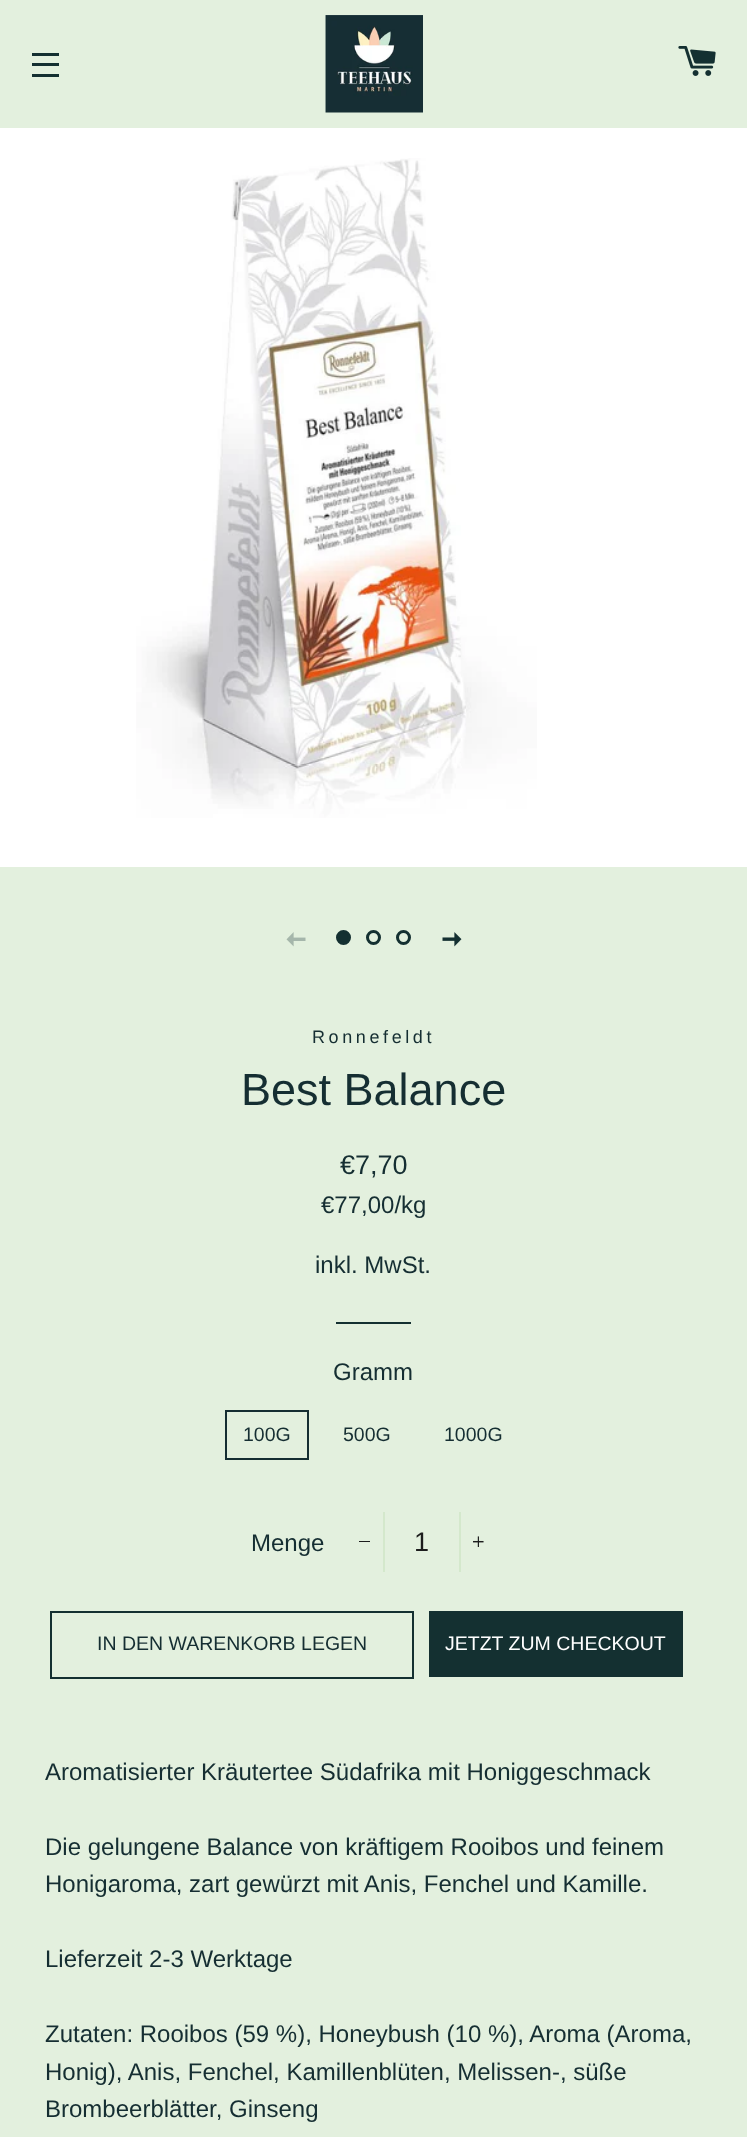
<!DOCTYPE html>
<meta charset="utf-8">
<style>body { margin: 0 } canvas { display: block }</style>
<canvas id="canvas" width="747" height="2137"></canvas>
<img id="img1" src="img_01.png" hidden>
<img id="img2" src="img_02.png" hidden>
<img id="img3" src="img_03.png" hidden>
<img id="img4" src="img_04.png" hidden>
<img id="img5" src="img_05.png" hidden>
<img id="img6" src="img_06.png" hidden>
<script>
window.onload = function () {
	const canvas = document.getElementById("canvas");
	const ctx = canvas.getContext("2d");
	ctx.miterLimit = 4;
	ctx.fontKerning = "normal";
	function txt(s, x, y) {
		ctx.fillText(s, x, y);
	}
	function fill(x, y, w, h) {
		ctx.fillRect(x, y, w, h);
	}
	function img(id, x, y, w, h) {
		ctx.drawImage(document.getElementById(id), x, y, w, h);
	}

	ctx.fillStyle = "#E3F0DE";
	fill(0, 0, 747, 2137);
	ctx.fillStyle = "#143031";
	fill(32, 53, 27, 3);
	fill(32, 63, 27, 3);
	fill(32, 74, 27, 3);
	img("img1", 325, 15, 98, 98);
	img("img2", 678, 46, 38, 30);
	ctx.fillStyle = "#FFFFFF";
	fill(0, 128, 747, 739);
	img("img3", 136, 158, 401, 660);
	img("img4", 286, 932, 20, 15);
	ctx.fillStyle = "#143031";
	ctx.beginPath();
	ctx.arc(343.5, 937.5, 6, 0, Math.PI * 2);
	ctx.fill();
	ctx.strokeStyle = "#143031";
	ctx.lineWidth = 3;
	ctx.stroke();
	ctx.beginPath();
	ctx.arc(373.5, 937.5, 6, 0, Math.PI * 2);
	ctx.stroke();
	ctx.beginPath();
	ctx.arc(403.5, 937.5, 6, 0, Math.PI * 2);
	ctx.stroke();
	img("img5", 442, 932, 20, 15);
	fill(336, 1322, 75, 2);
	ctx.strokeStyle = "#152E32";
	ctx.lineWidth = 2;
	ctx.strokeRect(226, 1411, 82, 48);
	ctx.fillStyle = "#D4E8CC";
	fill(383, 1512, 2, 60);
	ctx.fillStyle = "#1C1D1D";
	fill(359, 1541, 11, 1);
	ctx.fillStyle = "#D4E8CC";
	fill(459, 1512, 2, 60);
	img("img6", 473, 1536, 11, 11);
	ctx.strokeStyle = "#143031";
	ctx.strokeRect(51, 1612, 362, 66);
	ctx.fillStyle = "#143031";
	fill(429, 1611, 254, 66);
	ctx.letterSpacing = "3.6px";
	ctx.font = "18px Liberation Sans";
	ctx.fillStyle = "#152E32";
	txt("Ronnefeldt", 312, 1043);
	ctx.letterSpacing = "0px";
	ctx.font = "45px Liberation Sans";
	txt("Best Balance", 241, 1105);
	ctx.font = "27px Liberation Sans";
	txt("€7,70", 340, 1174);
	ctx.font = "24px Liberation Sans";
	txt("€77,00/kg", 321, 1213);
	txt("inkl. MwSt.", 315, 1273);
	txt("Gramm", 333, 1380);
	ctx.font = "19.5px Liberation Sans";
	txt("100G", 243, 1441);
	txt("500G", 343, 1441);
	txt("1000G", 444, 1441);
	ctx.font = "24px Liberation Sans";
	txt("Menge", 251, 1551);
	ctx.font = "27px Liberation Sans";
	ctx.fillStyle = "#1C1D1D";
	txt("1", 414, 1551);
	ctx.font = "19.5px Liberation Sans";
	ctx.fillStyle = "#152E32";
	txt("IN DEN WARENKORB LEGEN", 97, 1650);
	ctx.fillStyle = "#FFFFFF";
	txt("JETZT ZUM CHECKOUT", 445, 1650);
	ctx.font = "24px Liberation Sans";
	ctx.fillStyle = "#152E32";
	txt("Aromatisierter Kräutertee Südafrika mit Honiggeschmack", 45, 1780);
	txt("Die gelungene Balance von kräftigem Rooibos und feinem", 45, 1855);
	txt("Honigaroma, zart gewürzt mit Anis, Fenchel und Kamille.", 45, 1892);
	txt("Lieferzeit 2-3 Werktage", 45, 1967);
	txt("Zutaten: Rooibos (59 %), Honeybush (10 %), Aroma (Aroma,", 45, 2042);
	txt("Honig), Anis, Fenchel, Kamillenblüten, Melissen-, süße", 45, 2080);
	txt("Brombeerblätter, Ginseng", 45, 2117);
};
</script>
